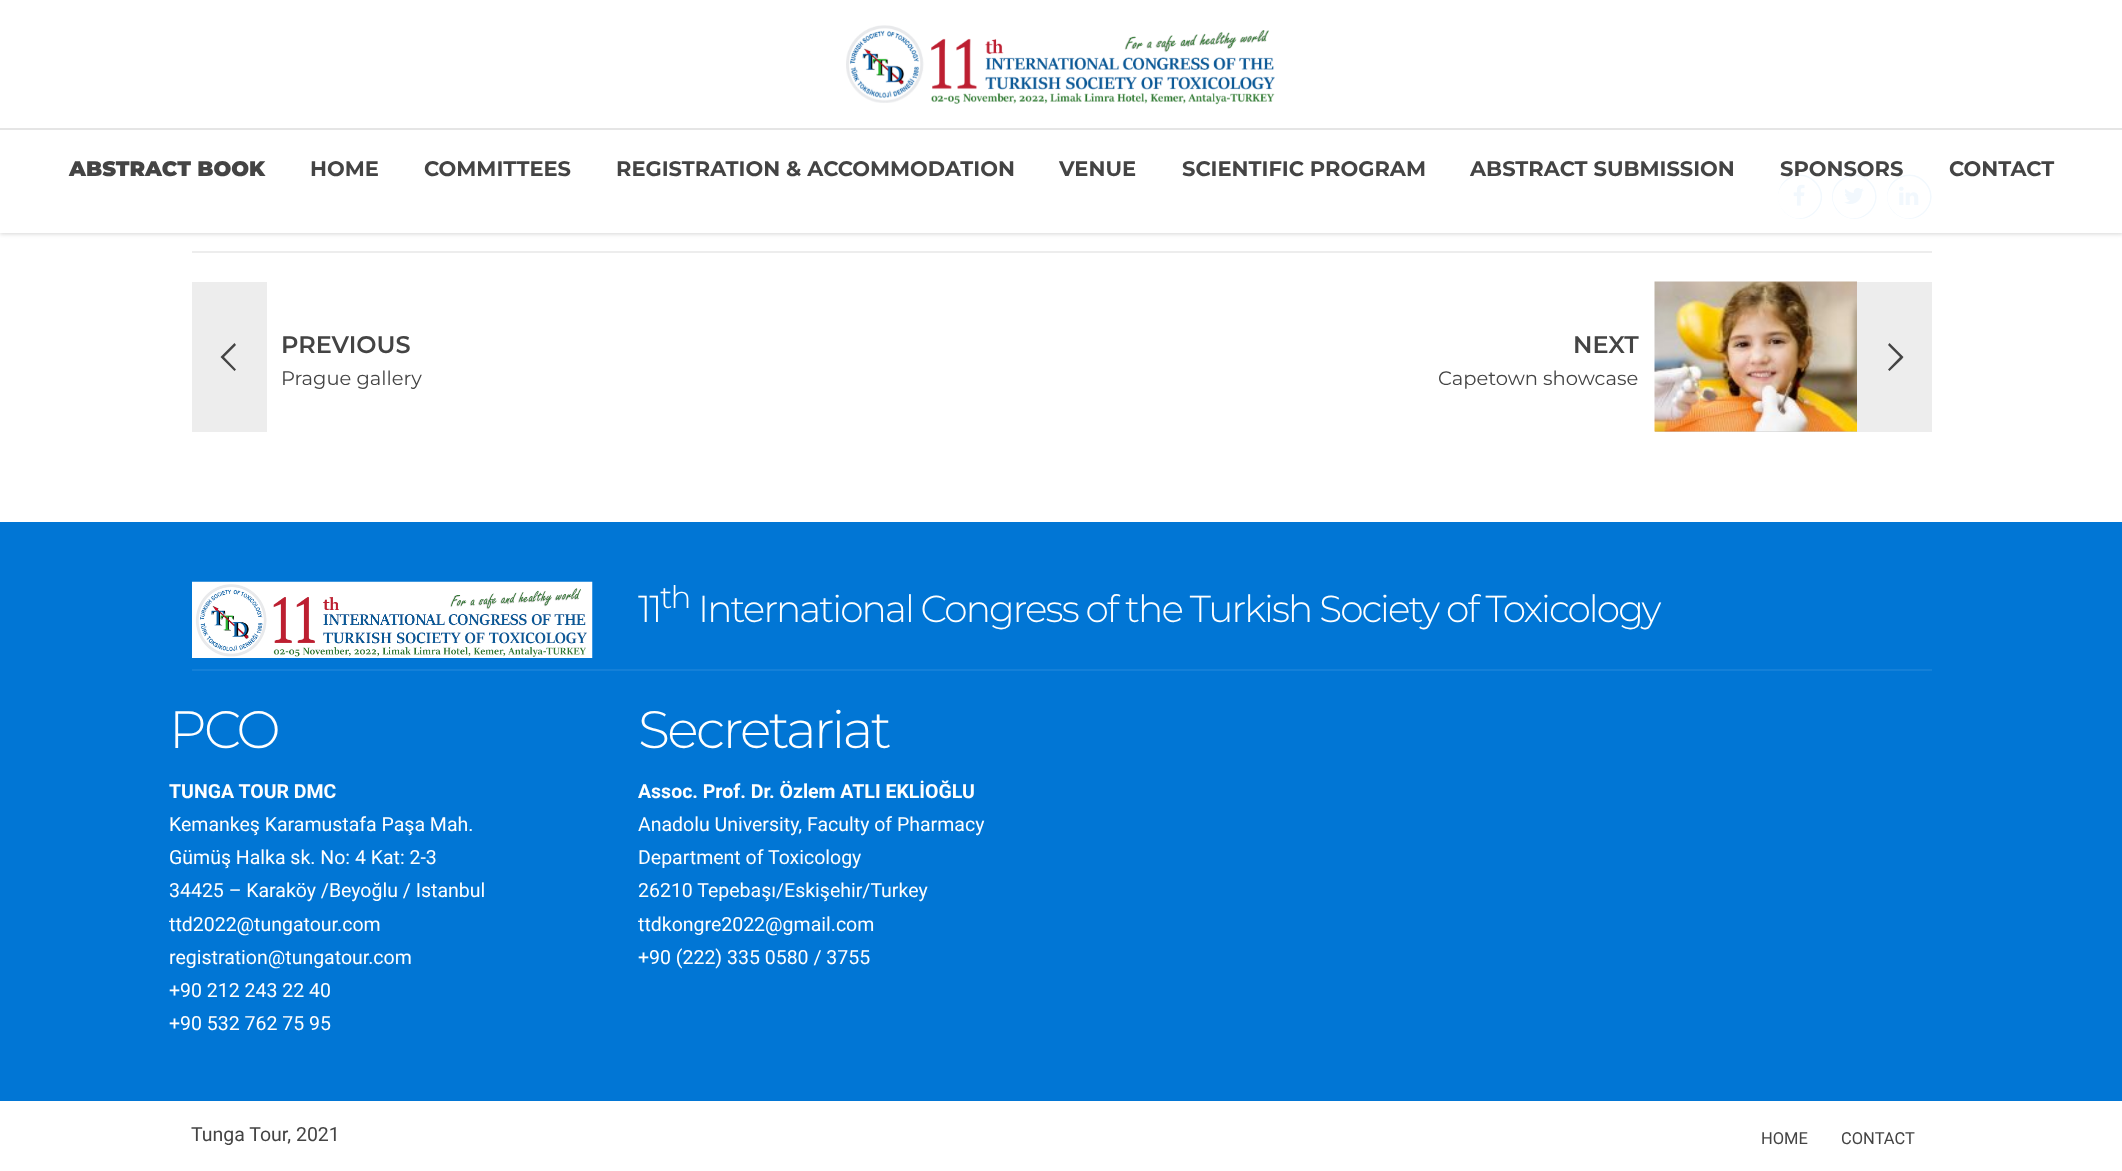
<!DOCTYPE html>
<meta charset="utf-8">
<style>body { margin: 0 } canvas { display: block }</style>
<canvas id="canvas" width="2122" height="1171"></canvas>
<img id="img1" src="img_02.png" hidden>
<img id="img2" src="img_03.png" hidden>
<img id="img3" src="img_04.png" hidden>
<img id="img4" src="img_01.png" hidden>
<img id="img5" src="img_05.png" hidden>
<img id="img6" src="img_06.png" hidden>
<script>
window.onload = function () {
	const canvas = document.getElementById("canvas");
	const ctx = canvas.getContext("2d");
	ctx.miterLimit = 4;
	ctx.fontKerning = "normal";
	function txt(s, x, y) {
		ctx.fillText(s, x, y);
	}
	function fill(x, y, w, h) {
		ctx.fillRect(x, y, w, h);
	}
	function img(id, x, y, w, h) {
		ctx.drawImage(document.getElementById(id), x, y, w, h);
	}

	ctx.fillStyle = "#FFFFFF";
	fill(0, 0, 2122, 1171);
	ctx.save();
	ctx.beginPath();
	ctx.roundRect(1778, 174, 45, 45, 22.5);
	ctx.clip();
	ctx.beginPath();
	ctx.moveTo(1816, 183);
	ctx.bezierCurveTo(1834.5, 205, 1801, 233, 1782.5, 211);
	ctx.bezierCurveTo(1764, 189, 1797.5, 161.5, 1816, 183);
	ctx.closePath();
	ctx.strokeStyle = "#0176D5";
	ctx.lineWidth = 1.5;
	ctx.stroke();
	ctx.restore();
	img("img1", 1793, 184, 12, 22);
	ctx.save();
	ctx.beginPath();
	ctx.roundRect(1832, 174, 45, 45, 22.5);
	ctx.clip();
	ctx.beginPath();
	ctx.moveTo(1870.5, 183);
	ctx.bezierCurveTo(1889, 205, 1855.5, 233, 1837.5, 211);
	ctx.bezierCurveTo(1819, 189, 1852.5, 161.5, 1870.5, 183);
	ctx.closePath();
	ctx.strokeStyle = "#0176D5";
	ctx.lineWidth = 1.5;
	ctx.stroke();
	ctx.restore();
	img("img2", 1844, 187, 20, 17);
	ctx.save();
	ctx.beginPath();
	ctx.roundRect(1887, 174, 45, 45, 22.5);
	ctx.clip();
	ctx.beginPath();
	ctx.moveTo(1925.5, 183);
	ctx.bezierCurveTo(1944, 205, 1910.5, 233, 1892, 211);
	ctx.bezierCurveTo(1873.5, 189, 1907, 161.5, 1925.5, 183);
	ctx.closePath();
	ctx.strokeStyle = "#0176D5";
	ctx.lineWidth = 1.5;
	ctx.stroke();
	ctx.restore();
	img("img3", 1899, 186, 20, 19);
	ctx.save();
	ctx.beginPath();
	ctx.moveTo(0, 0);
	ctx.lineTo(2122, 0);
	ctx.lineTo(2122, 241);
	ctx.lineTo(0, 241);
	ctx.closePath();
	ctx.moveTo(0, 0);
	ctx.lineTo(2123, 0);
	ctx.lineTo(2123, 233);
	ctx.lineTo(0, 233);
	ctx.closePath();
	ctx.clip("evenodd");
	ctx.fillStyle = "rgba(0, 0, 0, 0.16)";
	ctx.filter = "blur(2px)";
	ctx.beginPath();
	ctx.rect(0, 2, 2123, 232);
	ctx.fill();
	ctx.filter = "none";
	ctx.restore();
	ctx.fillStyle = "rgba(255, 255, 255, 0.95)";
	fill(0, 174, 2122, 59);
	img("img4", 846, 25, 429, 80);
	ctx.fillStyle = "rgba(0, 0, 0, 0.1)";
	fill(0, 128, 1062, 2);
	ctx.fillStyle = "#E5E5E5";
	fill(1062, 128, 1060, 2);
	ctx.fillStyle = "#EDEDED";
	fill(192, 251, 1740, 2);
	fill(192, 282, 75, 150);
	ctx.fillStyle = "#444444";
	ctx.beginPath();
	ctx.moveTo(222, 355.5);
	ctx.lineTo(220.5, 357);
	ctx.lineTo(234.5, 371);
	ctx.lineTo(236, 369.5);
	ctx.lineTo(224, 357);
	ctx.lineTo(236, 345);
	ctx.lineTo(234.5, 343);
	ctx.closePath();
	ctx.fill();
	ctx.fillStyle = "#CCCCCC";
	fill(1655, 431, 202, 1);
	img("img5", 1654, 281, 203, 151);
	ctx.fillStyle = "#EDEDED";
	fill(1857, 282, 75, 150);
	ctx.fillStyle = "#444444";
	ctx.beginPath();
	ctx.moveTo(1902, 359);
	ctx.lineTo(1903.5, 357);
	ctx.lineTo(1889.5, 343);
	ctx.lineTo(1888, 345);
	ctx.lineTo(1900, 357);
	ctx.lineTo(1888, 369.5);
	ctx.lineTo(1889.5, 371);
	ctx.closePath();
	ctx.fill();
	ctx.fillStyle = "#0176D5";
	fill(0, 522, 2122, 579);
	img("img6", 192, 581, 401, 77);
	ctx.fillStyle = "#1480D8";
	fill(192, 669, 1740, 2);
	ctx.font = "900 21px Montserrat";
	ctx.fillStyle = "#444444";
	txt("ABSTRACT BOOK", 69, 176);
	ctx.font = "bold 21px Montserrat";
	txt("HOME", 310, 176);
	txt("COMMITTEES", 424, 176);
	txt("REGISTRATION & ACCOMMODATION", 616, 176);
	txt("VENUE", 1059, 176);
	txt("SCIENTIFIC PROGRAM", 1182, 176);
	txt("ABSTRACT SUBMISSION", 1470, 176);
	txt("SPONSORS", 1780, 176);
	txt("CONTACT", 1949, 176);
	ctx.font = "600 24px Montserrat";
	txt("PREVIOUS", 281, 353);
	ctx.font = "19.5px Montserrat";
	txt("Prague gallery", 281, 385);
	ctx.font = "600 24px Montserrat";
	txt("NEXT", 1573, 353);
	ctx.font = "19.5px Montserrat";
	txt("Capetown showcase", 1438, 385);
	ctx.letterSpacing = "-1.88px";
	ctx.font = "300 37.5px Montserrat";
	ctx.fillStyle = "#FFFFFF";
	txt("11", 638, 622);
	ctx.font = "300 31px Montserrat";
	txt("th", 660, 608);
	ctx.font = "300 37.5px Montserrat";
	txt("International Congress of the Turkish Society of Toxicology", 698, 622);
	ctx.letterSpacing = "-2.6px";
	ctx.font = "300 52.5px Montserrat";
	txt("PCO", 169, 748);
	ctx.letterSpacing = "0px";
	ctx.font = "bold 19.5px Roboto";
	txt("TUNGA TOUR DMC", 169, 798);
	ctx.font = "19.5px Roboto";
	txt("Kemankeş Karamustafa Paşa Mah.", 169, 831);
	txt("Gümüş Halka sk. No: 4 Kat: 2-3", 169, 864);
	txt("34425 – Karaköy /Beyoğlu / Istanbul", 169, 897);
	txt("ttd2022@tungatour.com", 169, 931);
	txt("registration@tungatour.com", 169, 964);
	txt("+90 212 243 22 40", 169, 997);
	txt("+90 532 762 75 95", 169, 1030);
	ctx.letterSpacing = "-2.6px";
	ctx.font = "300 52.5px Montserrat";
	txt("Secretariat", 638, 748);
	ctx.letterSpacing = "0px";
	ctx.font = "bold 19.5px Roboto";
	txt("Assoc. Prof. Dr. Özlem ATLI EKLİOĞLU", 638, 798);
	ctx.font = "19.5px Roboto";
	txt("Anadolu University, Faculty of Pharmacy", 638, 831);
	txt("Department of Toxicology", 638, 864);
	txt("26210 Tepebaşı/Eskişehir/Turkey", 638, 897);
	txt("ttdkongre2022@gmail.com", 638, 931);
	txt("+90 (222) 335 0580 / 3755", 638, 964);
	ctx.fillStyle = "#444444";
	txt("Tunga Tour, 2021", 191, 1141);
	ctx.font = "16.5px Roboto";
	txt("HOME", 1761, 1144);
	txt("CONTACT", 1841, 1144);
};
</script>
